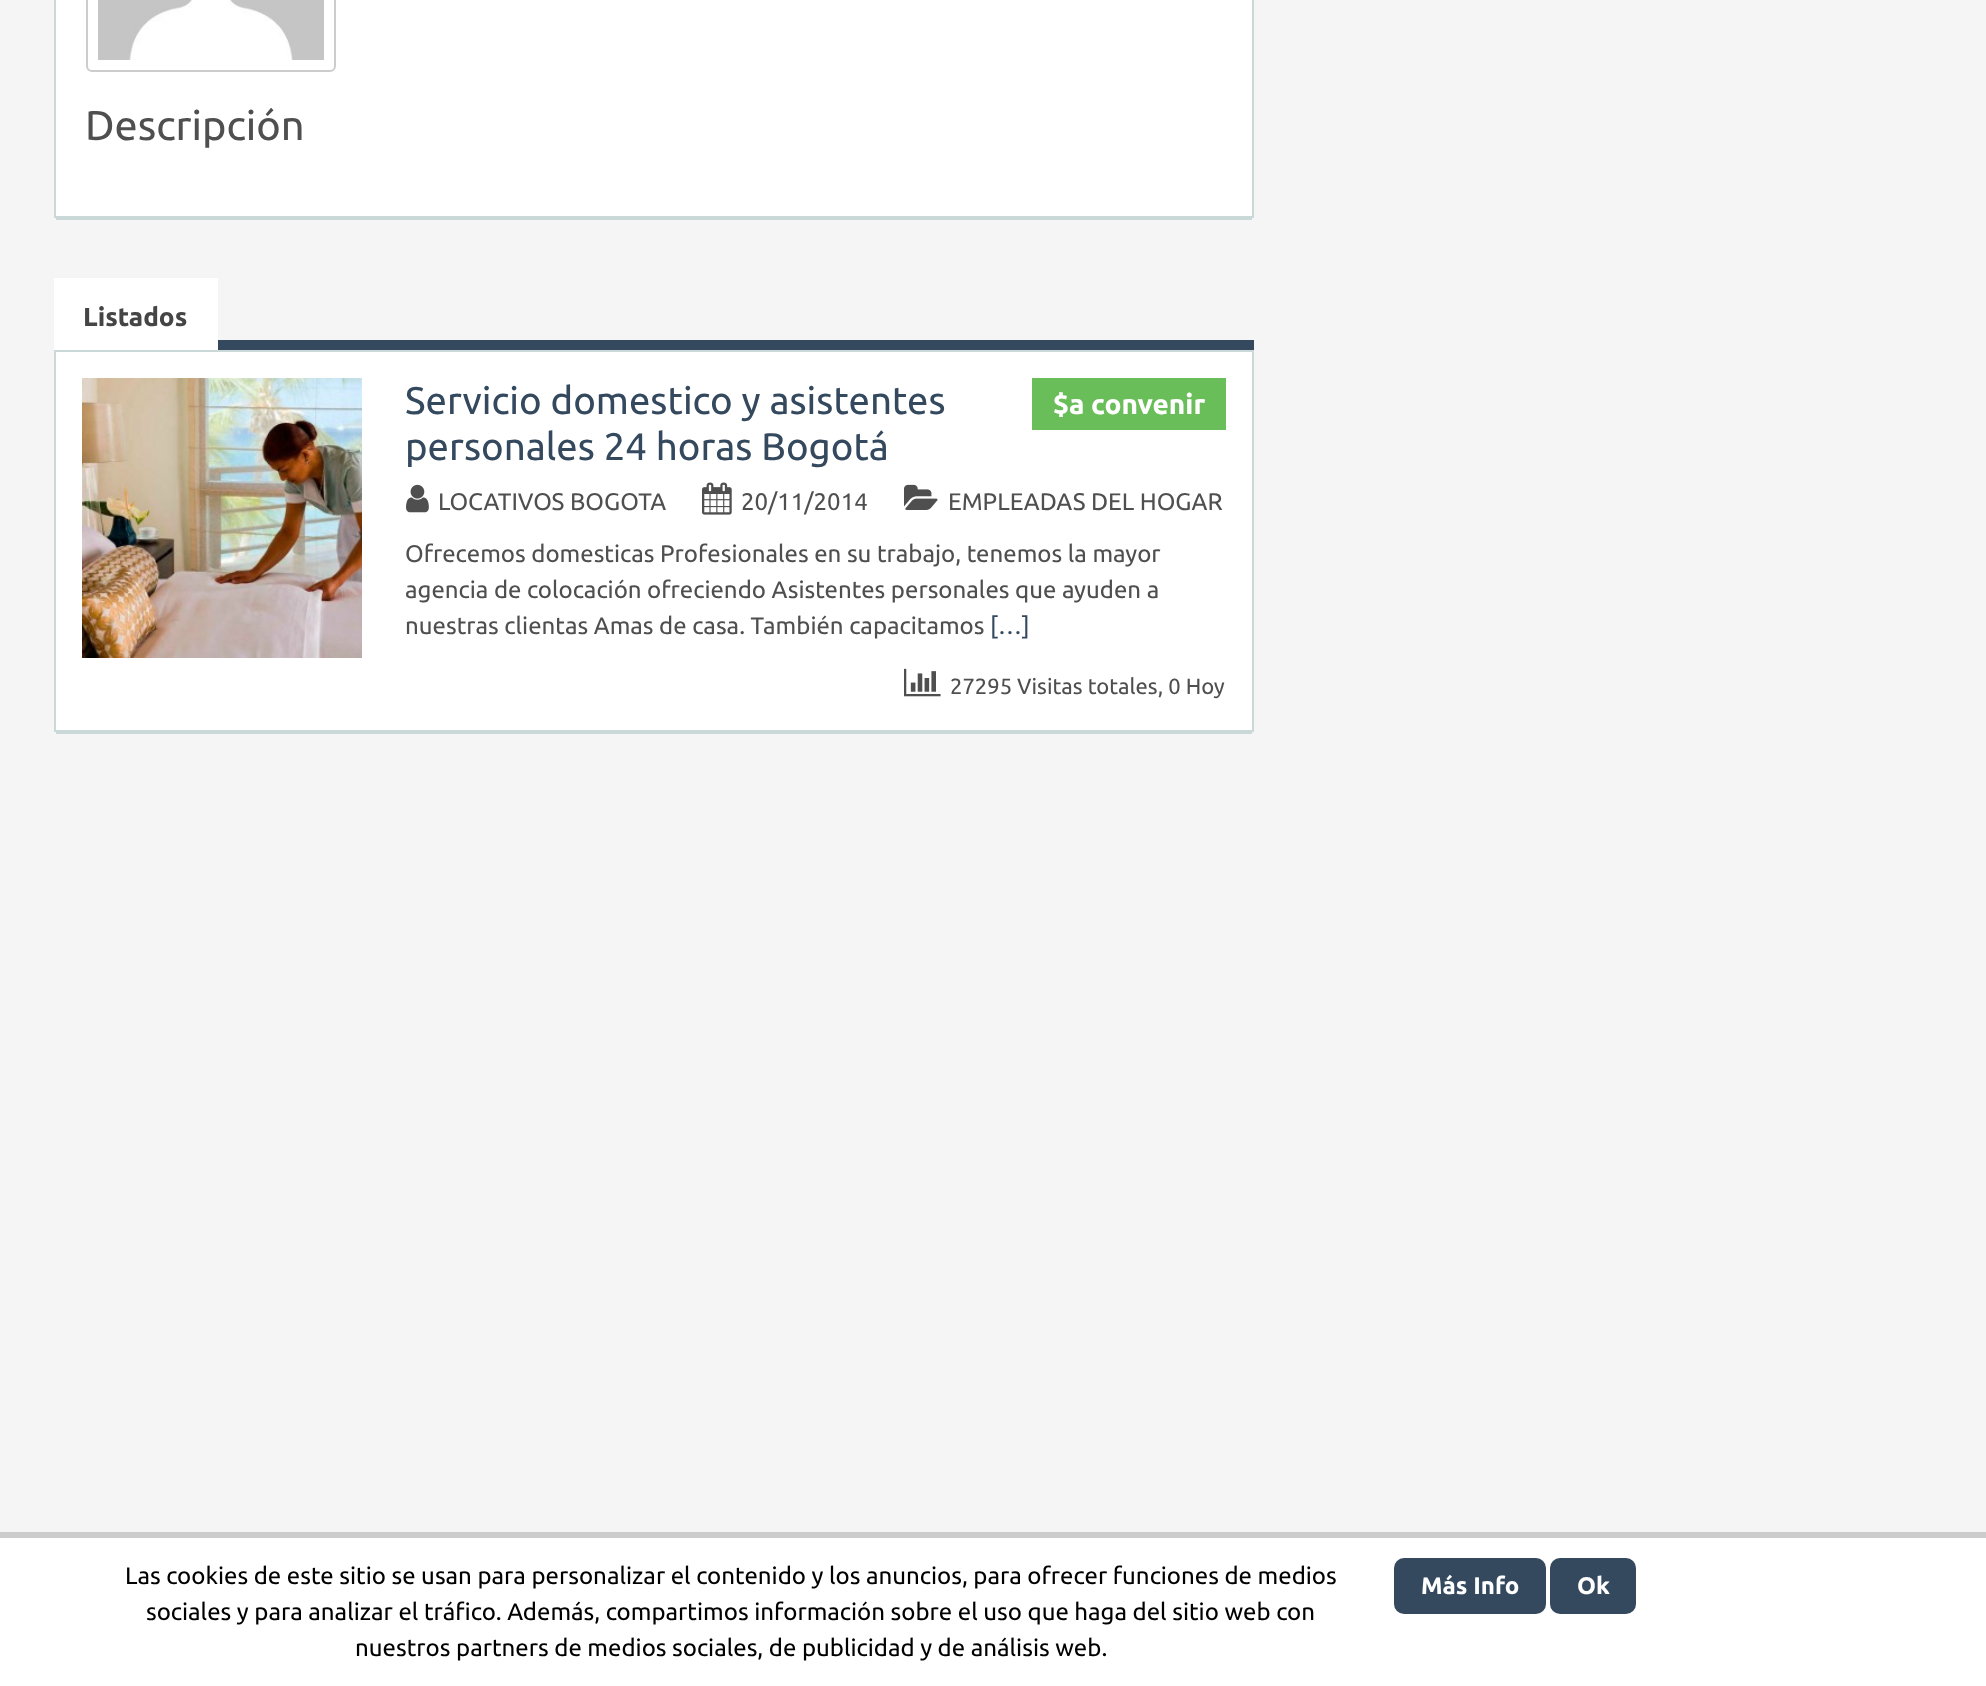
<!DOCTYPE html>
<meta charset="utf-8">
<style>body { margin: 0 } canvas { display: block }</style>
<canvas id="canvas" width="1986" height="1686"></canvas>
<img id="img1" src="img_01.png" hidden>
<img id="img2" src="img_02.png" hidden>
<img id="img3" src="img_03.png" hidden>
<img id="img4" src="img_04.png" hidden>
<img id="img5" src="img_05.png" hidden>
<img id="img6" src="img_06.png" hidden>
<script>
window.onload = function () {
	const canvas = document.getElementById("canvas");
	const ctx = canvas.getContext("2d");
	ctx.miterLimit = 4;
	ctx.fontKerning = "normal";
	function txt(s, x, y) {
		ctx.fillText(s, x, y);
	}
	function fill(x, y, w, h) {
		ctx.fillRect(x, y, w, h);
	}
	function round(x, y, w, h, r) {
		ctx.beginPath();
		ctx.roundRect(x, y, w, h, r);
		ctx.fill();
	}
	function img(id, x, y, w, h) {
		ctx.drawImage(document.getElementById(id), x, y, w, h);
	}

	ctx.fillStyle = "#F5F5F5";
	fill(0, 0, 1986, 1686);
	ctx.fillStyle = "#CBD8D8";
	fill(56, 218, 1196, 2);
	ctx.fillStyle = "#FFFFFF";
	ctx.beginPath();
	ctx.rect(55, -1, 1198, 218);
	ctx.fill();
	ctx.strokeStyle = "#CBD8D8";
	ctx.lineWidth = 2;
	ctx.stroke();
	ctx.beginPath();
	ctx.roundRect(87, -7, 248, 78, 5);
	ctx.strokeStyle = "#CCCCCC";
	ctx.stroke();
	img("img1", 98, 0, 226, 60);
	fill(54, 278, 164, 72);
	ctx.fillStyle = "#34495E";
	fill(218, 340, 1036, 10);
	ctx.fillStyle = "#CBD8D8";
	fill(56, 732, 1196, 2);
	ctx.fillStyle = "#FFFFFF";
	ctx.beginPath();
	ctx.rect(55, 351, 1198, 380);
	ctx.fill();
	ctx.strokeStyle = "#CBD8D8";
	ctx.stroke();
	img("img2", 82, 378, 280, 280);
	ctx.fillStyle = "#6ABE59";
	fill(1032, 378, 194, 52);
	img("img3", 406, 484, 23, 29);
	img("img4", 702, 482, 30, 33);
	img("img5", 904, 484, 34, 26);
	img("img6", 904, 668, 37, 29);
	ctx.fillStyle = "#FFFFFF";
	fill(0, 1538, 1986, 148);
	ctx.fillStyle = "#CCCCCC";
	fill(0, 1532, 1986, 6);
	ctx.fillStyle = "#34495E";
	round(1394, 1558, 152, 56, 10);
	round(1550, 1558, 86, 56, 10);
	ctx.font = "41.5px Ubuntu";
	ctx.fillStyle = "#4F4F4F";
	txt("Descripción", 85, 140);
	ctx.font = "bold 26px Ubuntu";
	ctx.fillStyle = "#454545";
	txt("Listados", 83, 326);
	ctx.font = "38.4px Ubuntu";
	ctx.fillStyle = "#34495E";
	txt("Servicio domestico y asistentes", 405, 414);
	txt("personales 24 horas Bogotá", 405, 460);
	ctx.font = "bold 28px Ubuntu";
	ctx.fillStyle = "#FFFFFF";
	txt("$a convenir", 1053, 414);
	ctx.font = "24px Ubuntu";
	ctx.fillStyle = "#4F4F4F";
	txt("LOCATIVOS BOGOTA", 438, 510);
	txt("20/11/2014", 741, 510);
	txt("EMPLEADAS DEL HOGAR", 948, 510);
	txt("Ofrecemos domesticas Profesionales en su trabajo, tenemos la mayor", 405, 562);
	txt("agencia de colocación ofreciendo Asistentes personales que ayuden a", 405, 598);
	txt("nuestras clientas Amas de casa. También capacitamos", 405, 634);
	ctx.fillStyle = "#34495E";
	txt("[…]", 990, 634);
	ctx.font = "22px Ubuntu";
	ctx.fillStyle = "#4F4F4F";
	txt("27295 Visitas totales, 0 Hoy", 950, 694);
	ctx.font = "24px Ubuntu";
	ctx.fillStyle = "#000000";
	txt("Las cookies de este sitio se usan para personalizar el contenido y los anuncios, para ofrecer funciones de medios", 125, 1584);
	txt("sociales y para analizar el tráfico. Además, compartimos información sobre el uso que haga del sitio web con", 146, 1620);
	txt("nuestros partners de medios sociales, de publicidad y de análisis web.", 355, 1656);
	ctx.font = "bold 24px Ubuntu";
	ctx.fillStyle = "#FFFFFF";
	txt("Más Info", 1421, 1594);
	txt("Ok", 1577, 1594);
};
</script>
